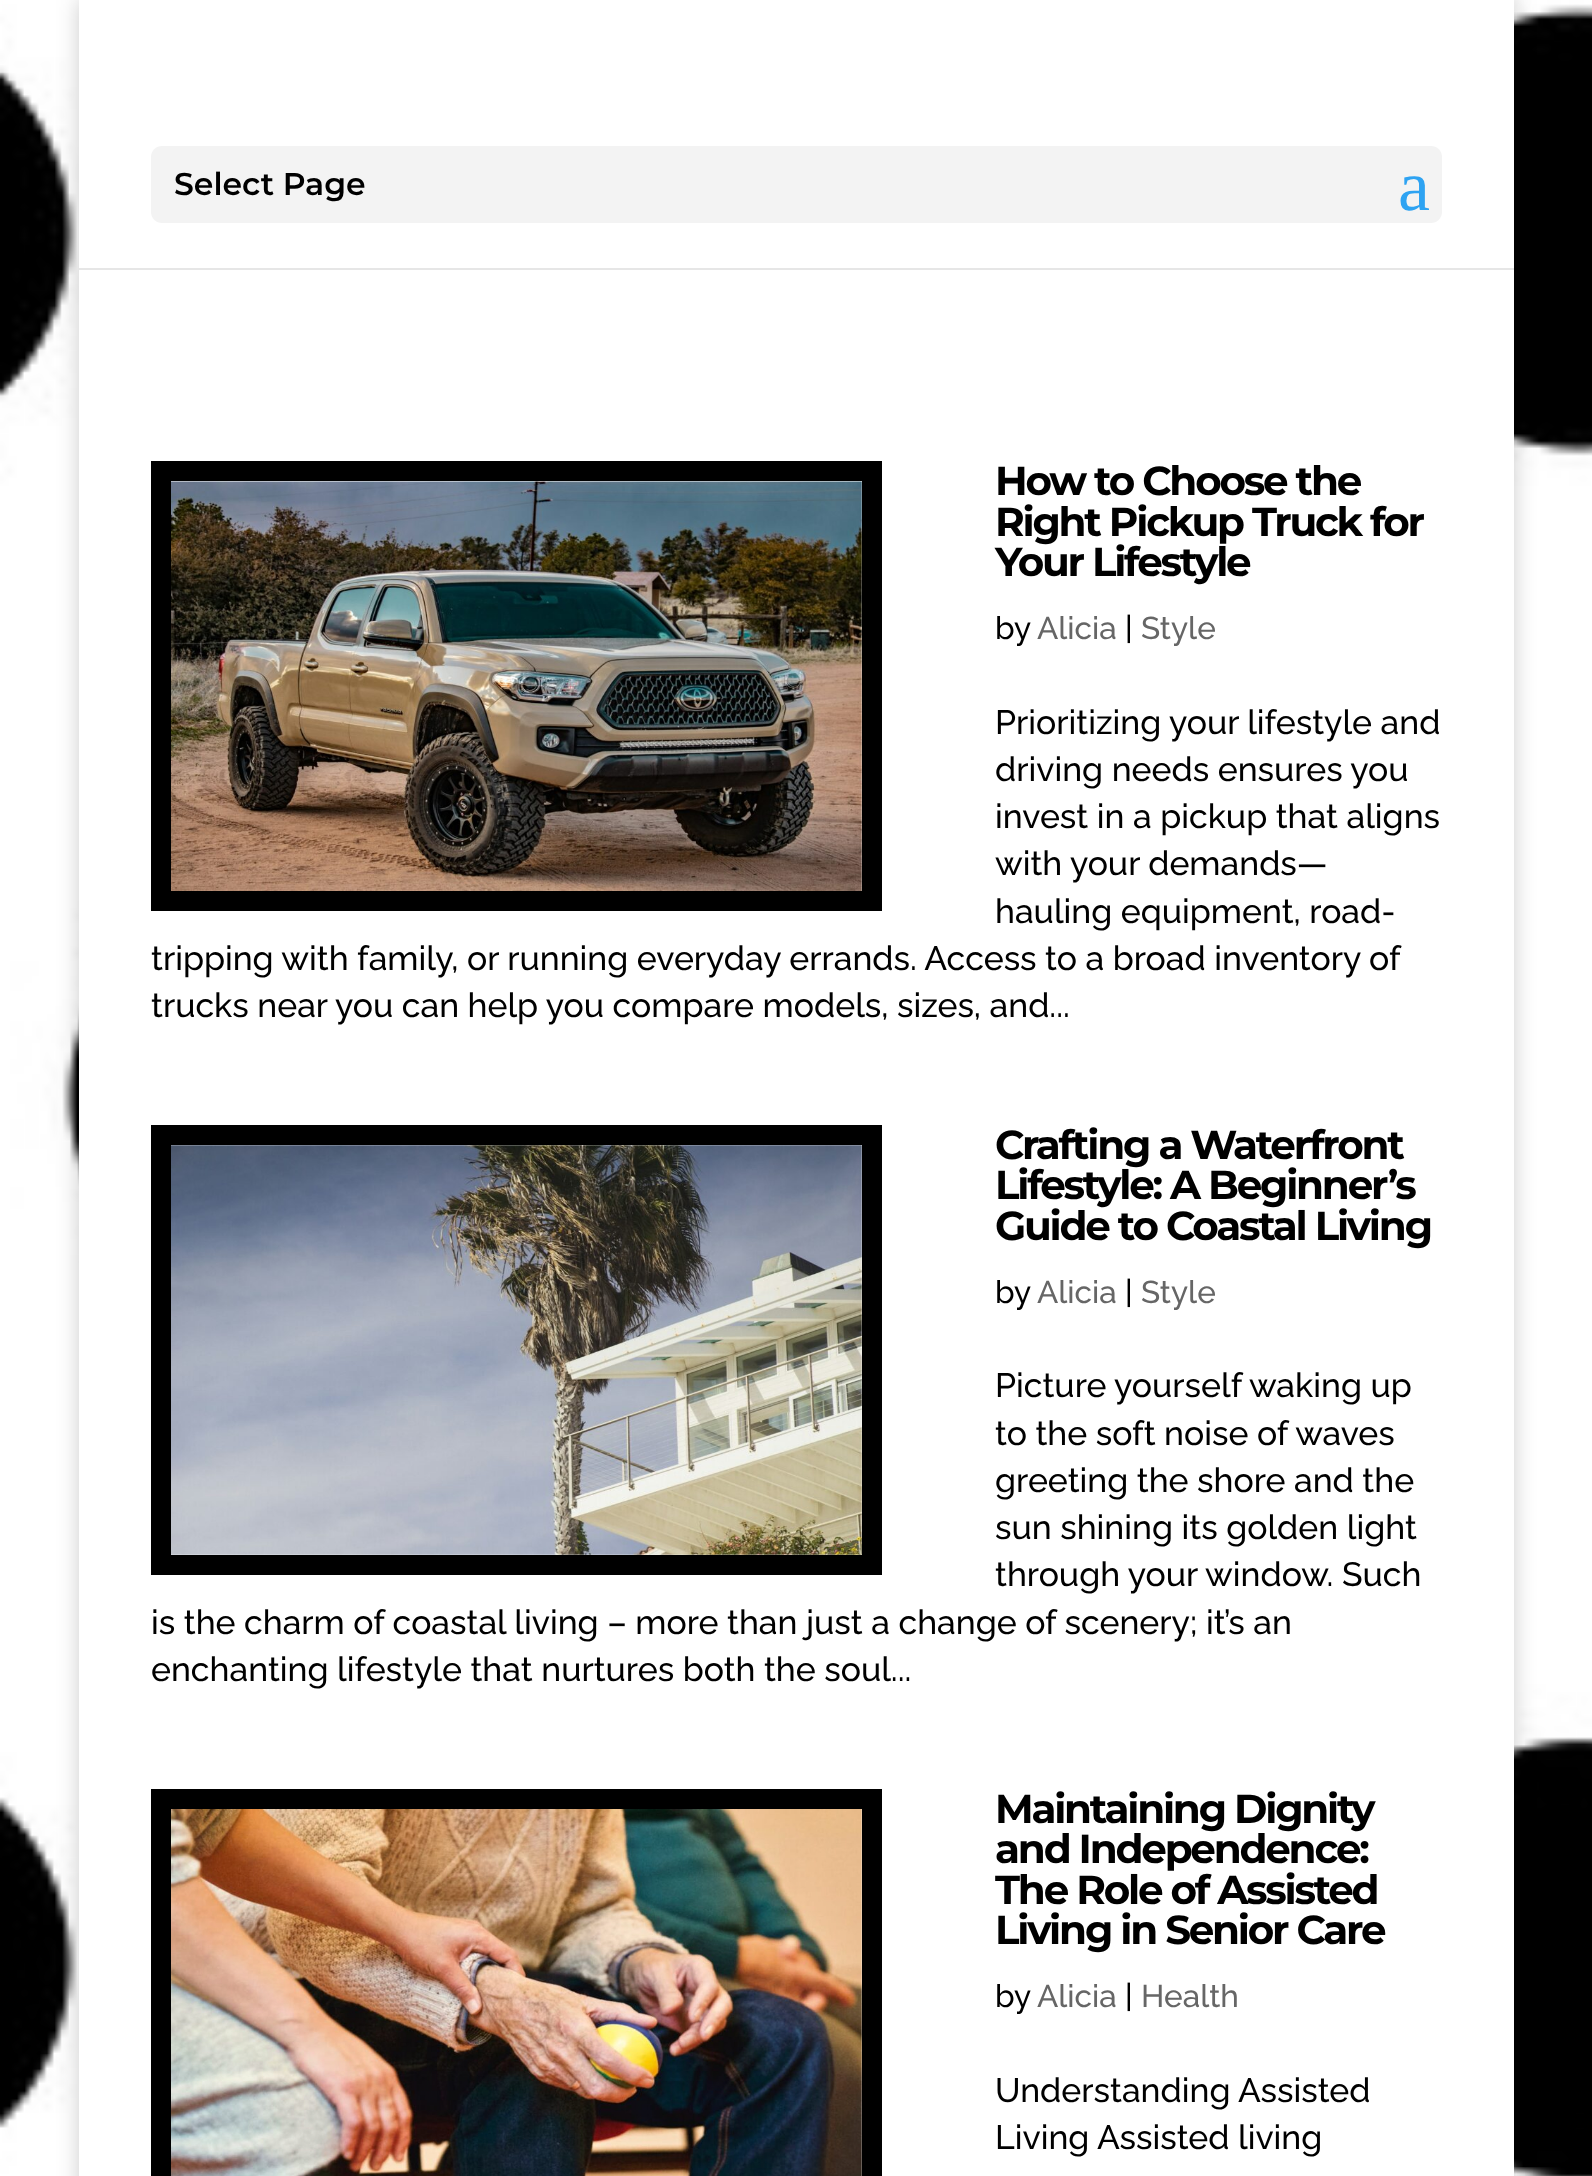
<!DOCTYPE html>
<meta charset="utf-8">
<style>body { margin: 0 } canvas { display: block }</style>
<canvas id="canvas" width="1592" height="2176"></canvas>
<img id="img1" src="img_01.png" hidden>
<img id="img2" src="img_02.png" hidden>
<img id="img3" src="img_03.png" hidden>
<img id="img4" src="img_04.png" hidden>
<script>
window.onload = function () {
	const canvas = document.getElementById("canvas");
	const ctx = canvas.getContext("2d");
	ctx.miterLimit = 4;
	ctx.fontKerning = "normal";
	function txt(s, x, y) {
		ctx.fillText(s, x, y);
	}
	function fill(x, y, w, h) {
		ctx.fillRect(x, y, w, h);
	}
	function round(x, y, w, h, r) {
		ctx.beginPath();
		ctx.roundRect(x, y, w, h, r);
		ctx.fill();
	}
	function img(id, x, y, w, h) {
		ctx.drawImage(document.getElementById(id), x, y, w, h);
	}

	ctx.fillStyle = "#FFFFFF";
	fill(0, 0, 1592, 2176);
	img("img1", 0, 0, 1592, 2176);
	ctx.fillStyle = "rgba(0, 0, 0, 0.2)";
	ctx.filter = "blur(11px)";
	ctx.beginPath();
	ctx.rect(79, 0, 1435, 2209);
	ctx.fill();
	ctx.filter = "none";
	ctx.fillStyle = "#E6E6E6";
	fill(79, 268, 1435, 2);
	ctx.fillStyle = "#FFFFFF";
	fill(79, 0, 1435, 268);
	ctx.fillStyle = "#F3F3F3";
	round(151, 146, 1291, 77, 11);
	ctx.fillStyle = "#FFFFFF";
	fill(79, 270, 1435, 1906);
	ctx.strokeStyle = "#000000";
	ctx.lineWidth = 20;
	ctx.strokeRect(161, 471, 711, 430);
	img("img2", 171, 481, 691, 410);
	ctx.strokeRect(161, 1135, 711, 430);
	img("img3", 171, 1145, 691, 410);
	ctx.strokeRect(161, 1799, 711, 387);
	img("img4", 171, 1809, 691, 367);
	ctx.font = "100 31.5px 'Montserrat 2'";
	ctx.fillStyle = "#000000";
	txt("Select Page", 174, 195);
	ctx.font = "72px Liberation Serif";
	ctx.fillStyle = "#2EA3F2";
	txt("a", 1398, 210);
	ctx.letterSpacing = "-2.25px";
	ctx.font = "100 40.5px Montserrat";
	ctx.fillStyle = "#000000";
	txt("How to Choose the", 995, 495);
	txt("Right Pickup Truck for", 995, 536);
	txt("Your Lifestyle", 995, 576);
	ctx.letterSpacing = "0px";
	ctx.font = "100 31.5px Raleway";
	txt("by", 995, 639);
	ctx.fillStyle = "#666666";
	txt("Alicia", 1037, 639);
	ctx.fillStyle = "#000000";
	txt("|", 1125, 639);
	ctx.fillStyle = "#666666";
	txt("Style", 1141, 639);
	ctx.font = "100 33.75px Raleway";
	ctx.fillStyle = "#000000";
	txt("Prioritizing your lifestyle and", 995, 734);
	txt("driving needs ensures you", 995, 781);
	txt("invest in a pickup that aligns", 995, 828);
	txt("with your demands—", 995, 875);
	txt("hauling equipment, road-", 995, 923);
	txt("tripping with family, or running everyday errands. Access to a broad inventory of", 151, 970);
	txt("trucks near you can help you compare models, sizes, and...", 151, 1017);
	ctx.letterSpacing = "-2.25px";
	ctx.font = "100 40.5px Montserrat";
	txt("Crafting a Waterfront", 995, 1159);
	txt("Lifestyle: A Beginner’s", 995, 1199);
	txt("Guide to Coastal Living", 995, 1240);
	ctx.letterSpacing = "0px";
	ctx.font = "100 31.5px Raleway";
	txt("by", 995, 1303);
	ctx.fillStyle = "#666666";
	txt("Alicia", 1037, 1303);
	ctx.fillStyle = "#000000";
	txt("|", 1125, 1303);
	ctx.fillStyle = "#666666";
	txt("Style", 1141, 1303);
	ctx.font = "100 33.75px Raleway";
	ctx.fillStyle = "#000000";
	txt("Picture yourself waking up", 995, 1397);
	txt("to the soft noise of waves", 995, 1445);
	txt("greeting the shore and the", 995, 1492);
	txt("sun shining its golden light", 995, 1539);
	txt("through your window. Such", 995, 1586);
	txt("is the charm of coastal living – more than just a change of scenery; it’s an", 151, 1634);
	txt("enchanting lifestyle that nurtures both the soul...", 151, 1681);
	ctx.letterSpacing = "-2.25px";
	ctx.font = "100 40.5px Montserrat";
	txt("Maintaining Dignity", 995, 1823);
	txt("and Independence:", 995, 1863);
	txt("The Role of Assisted", 995, 1904);
	txt("Living in Senior Care", 995, 1944);
	ctx.letterSpacing = "0px";
	ctx.font = "100 31.5px Raleway";
	txt("by", 995, 2007);
	ctx.fillStyle = "#666666";
	txt("Alicia", 1037, 2007);
	ctx.fillStyle = "#000000";
	txt("|", 1125, 2007);
	ctx.fillStyle = "#666666";
	txt("Health", 1141, 2007);
	ctx.font = "100 33.75px Raleway";
	ctx.fillStyle = "#000000";
	txt("Understanding Assisted", 995, 2102);
	txt("Living Assisted living", 995, 2149);
};
</script>
